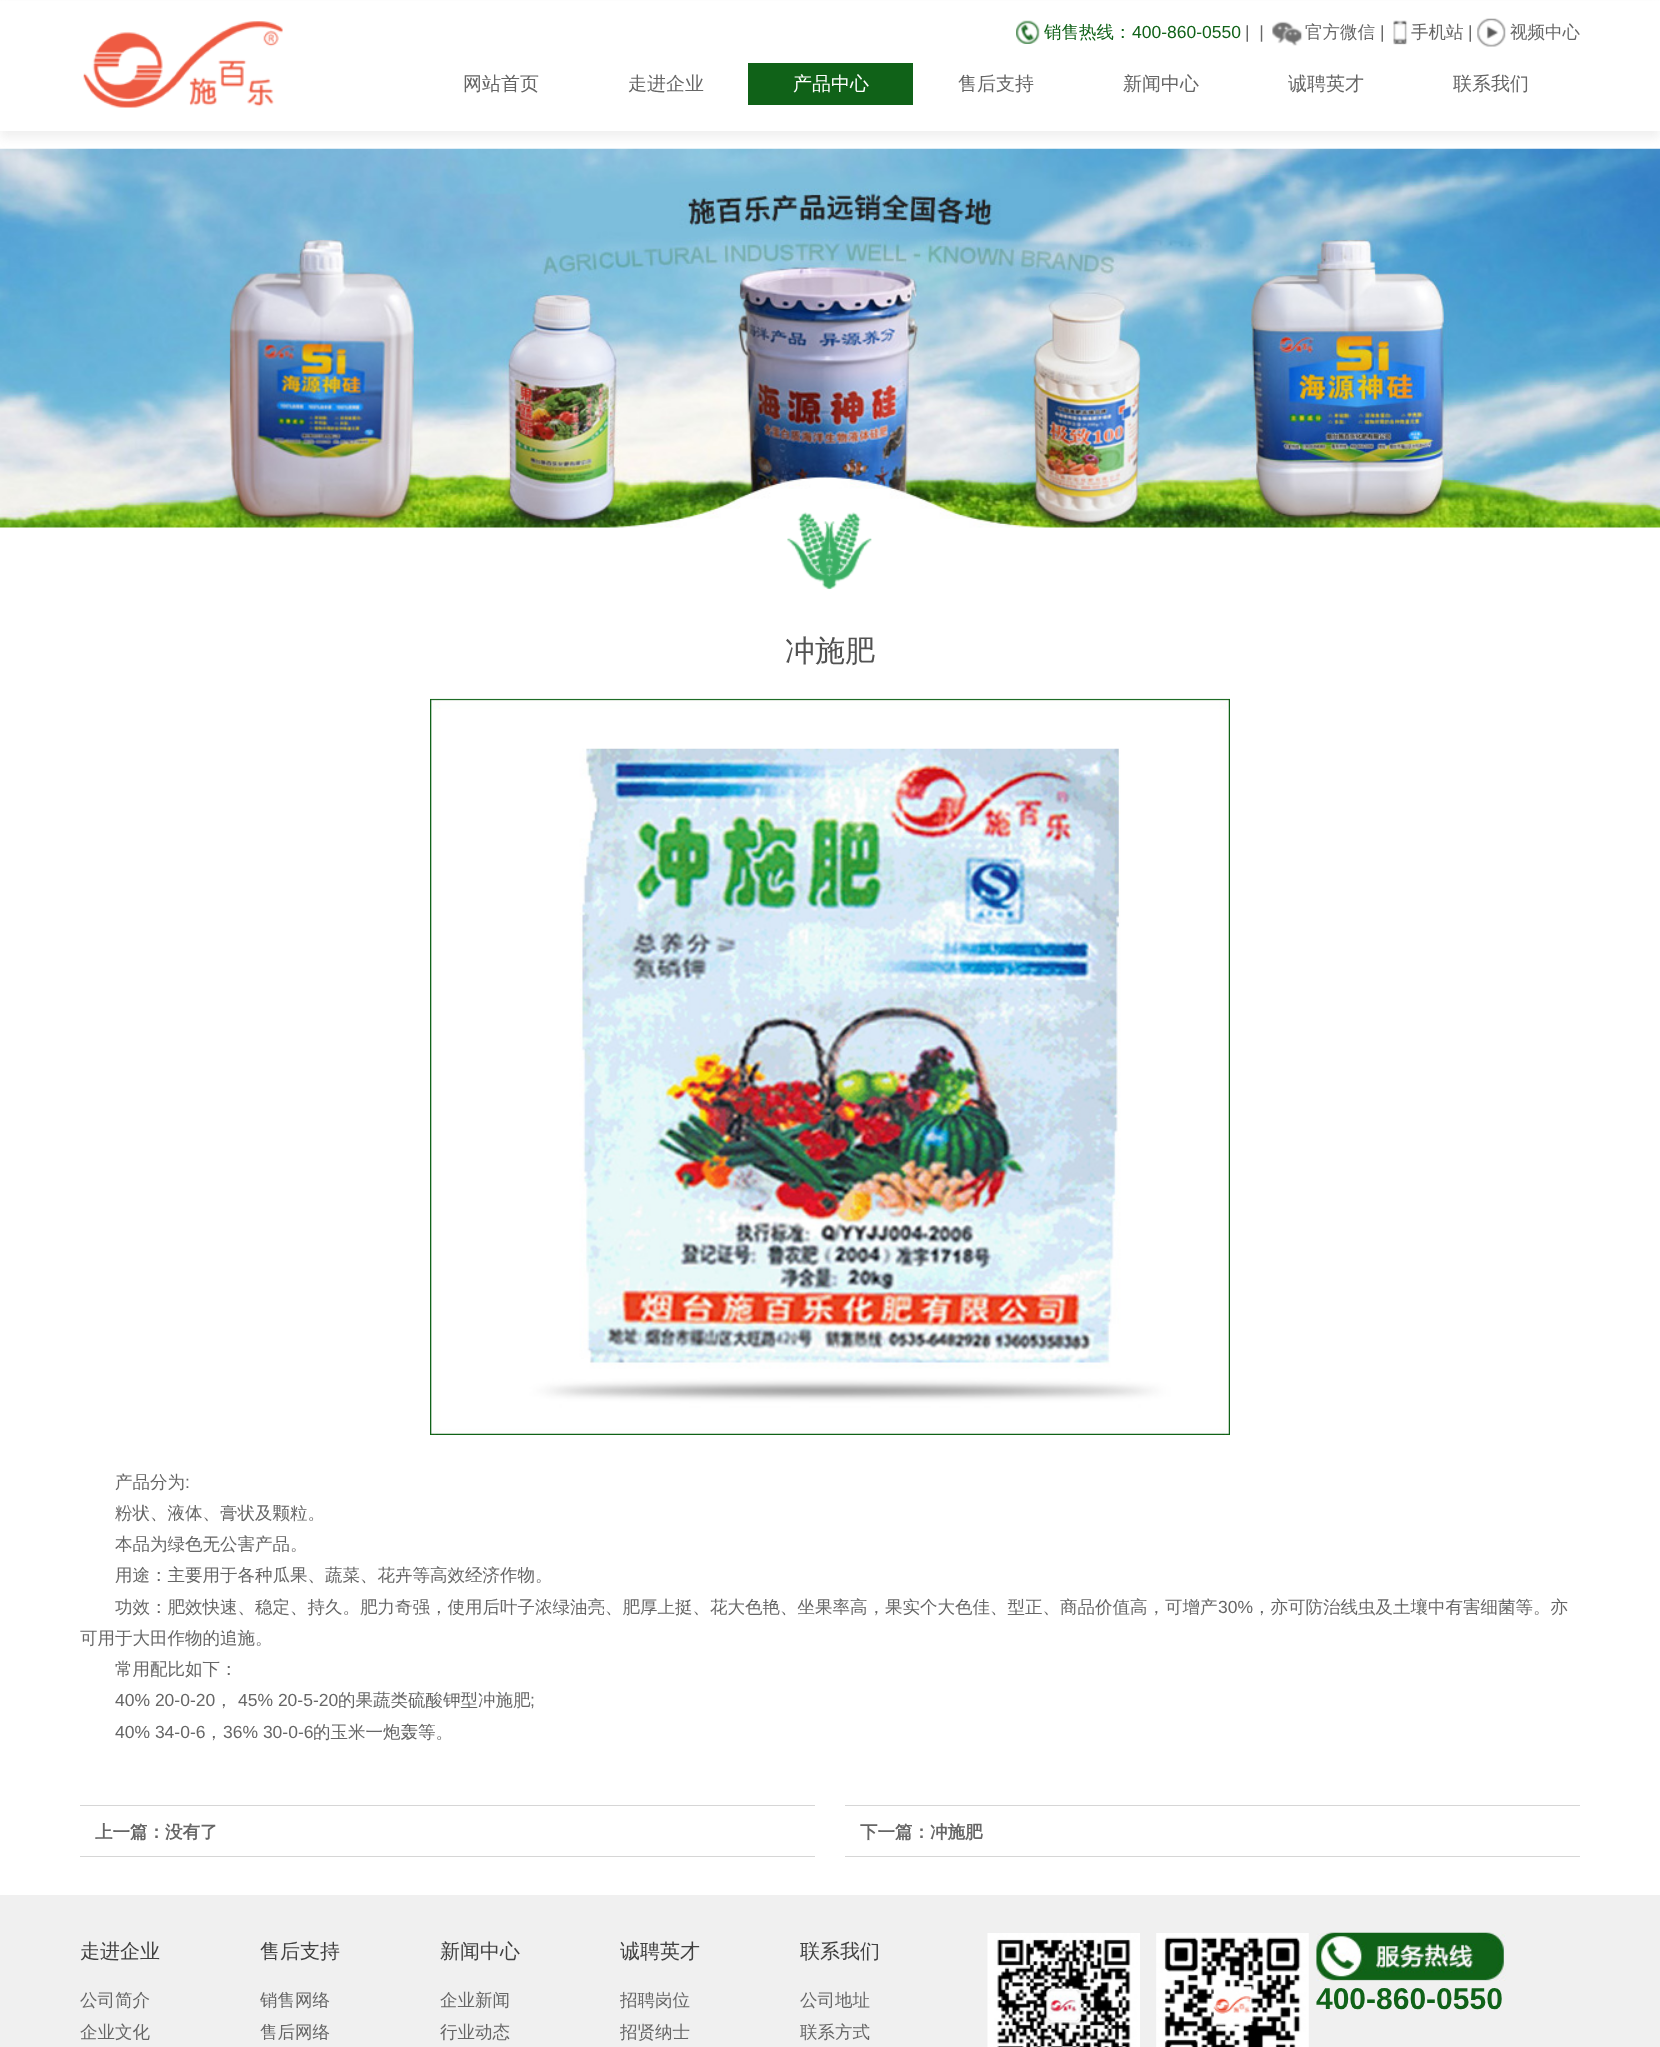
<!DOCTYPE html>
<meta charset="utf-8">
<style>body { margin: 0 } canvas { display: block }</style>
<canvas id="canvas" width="1660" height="2047"></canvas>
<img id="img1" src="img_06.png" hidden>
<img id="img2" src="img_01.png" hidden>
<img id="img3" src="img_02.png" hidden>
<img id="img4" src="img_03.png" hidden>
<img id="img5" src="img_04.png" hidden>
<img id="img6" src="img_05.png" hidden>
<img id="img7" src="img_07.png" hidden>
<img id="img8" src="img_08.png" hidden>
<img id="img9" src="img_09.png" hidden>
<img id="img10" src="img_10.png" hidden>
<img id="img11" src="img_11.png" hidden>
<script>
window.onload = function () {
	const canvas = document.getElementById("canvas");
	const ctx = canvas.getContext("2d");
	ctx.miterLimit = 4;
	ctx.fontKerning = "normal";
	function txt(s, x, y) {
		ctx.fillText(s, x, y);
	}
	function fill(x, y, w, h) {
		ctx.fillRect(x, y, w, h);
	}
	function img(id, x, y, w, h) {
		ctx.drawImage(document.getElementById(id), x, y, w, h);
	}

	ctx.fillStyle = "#FFFFFF";
	fill(0, 0, 1660, 2047);
	img("img1", 0, 148, 1660, 380);
	ctx.fillStyle = "rgba(204, 204, 204, 0.3)";
	ctx.filter = "blur(5px)";
	ctx.beginPath();
	ctx.rect(0, 6, 1660, 132);
	ctx.fill();
	ctx.filter = "none";
	ctx.fillStyle = "#FFFFFF";
	fill(0, 1, 1660, 130);
	img("img2", 83, 21, 200, 87);
	img("img3", 1016, 20, 24, 24);
	img("img4", 1272, 21, 31, 25);
	img("img5", 1393, 20, 15, 25);
	img("img6", 1477, 18, 29, 29);
	ctx.fillStyle = "#106218";
	fill(748, 63, 165, 42);
	img("img7", 787, 512, 85, 78);
	img("img8", 430, 698, 800, 737);
	ctx.fillStyle = "#D6D6D6";
	fill(80, 1805, 735, 1);
	fill(80, 1856, 735, 1);
	fill(845, 1805, 735, 1);
	fill(845, 1856, 735, 1);
	ctx.fillStyle = "#F0F0F0";
	fill(0, 1895, 1660, 152);
	img("img9", 987, 1933, 153, 114);
	img("img10", 1156, 1933, 153, 114);
	img("img11", 1316, 1932, 190, 49);
	ctx.font = "500 17.5px WenQuanYi Zen Hei";
	ctx.fillStyle = "#106218";
	txt("销售热线：", 1044, 38);
	ctx.font = "17.5px Liberation Sans";
	txt("400-860-0550", 1132, 38);
	ctx.fillStyle = "#666666";
	txt("|  |", 1245, 38);
	ctx.font = "500 17.5px WenQuanYi Zen Hei";
	txt("官方微信", 1305, 38);
	ctx.font = "17.5px Liberation Sans";
	txt("|", 1380, 38);
	ctx.font = "500 17.5px WenQuanYi Zen Hei";
	txt("手机站", 1411, 38);
	ctx.font = "17.5px Liberation Sans";
	txt("|", 1468, 38);
	ctx.font = "500 17.5px WenQuanYi Zen Hei";
	txt("视频中心", 1510, 38);
	ctx.font = "500 19px WenQuanYi Zen Hei";
	txt("网站首页", 463, 90);
	txt("走进企业", 628, 90);
	ctx.fillStyle = "#FFFFFF";
	txt("产品中心", 793, 90);
	ctx.fillStyle = "#666666";
	txt("售后支持", 958, 90);
	txt("新闻中心", 1123, 90);
	txt("诚聘英才", 1288, 90);
	txt("联系我们", 1453, 90);
	ctx.font = "500 30px WenQuanYi Zen Hei";
	ctx.fillStyle = "#525252";
	txt("冲施肥", 785, 661);
	ctx.font = "500 17.5px WenQuanYi Zen Hei";
	ctx.fillStyle = "#666666";
	txt("产品分为", 115, 1488);
	ctx.font = "17.5px Liberation Sans";
	txt(":", 185, 1488);
	ctx.font = "500 17.5px WenQuanYi Zen Hei";
	txt("粉状、液体、膏状及颗粒。", 115, 1519);
	txt("本品为绿色无公害产品。", 115, 1550);
	txt("用途：主要用于各种瓜果、蔬菜、花卉等高效经济作物。", 115, 1581);
	txt("　　功效：肥效快速、稳定、持久。肥力奇强，使用后叶子浓绿油亮、肥厚上挺、花大色艳、坐果率高，果实个大色佳、型正、商品价值高，可增产", 80, 1613);
	ctx.font = "17.5px Liberation Sans";
	txt("30%", 1218, 1613);
	ctx.font = "500 17.5px WenQuanYi Zen Hei";
	txt("，亦可防治线虫及土壤中有害细菌等。亦", 1253, 1613);
	txt("可用于大田作物的追施。", 80, 1644);
	txt("常用配比如下：", 115, 1675);
	ctx.font = "17.5px Liberation Sans";
	txt("40% 20-0-20", 115, 1706);
	ctx.font = "500 17.5px WenQuanYi Zen Hei";
	txt("，", 215, 1706);
	ctx.font = "17.5px Liberation Sans";
	txt("45% 20-5-20", 238, 1706);
	ctx.font = "500 17.5px WenQuanYi Zen Hei";
	txt("的果蔬类硫酸钾型冲施肥", 338, 1706);
	ctx.font = "17.5px Liberation Sans";
	txt(";", 530, 1706);
	txt("40% 34-0-6", 115, 1738);
	ctx.font = "500 17.5px WenQuanYi Zen Hei";
	txt("，", 205, 1738);
	ctx.font = "17.5px Liberation Sans";
	txt("36% 30-0-6", 223, 1738);
	ctx.font = "500 17.5px WenQuanYi Zen Hei";
	txt("的玉米一炮轰等。", 313, 1738);
	ctx.font = "bold 17.5px WenQuanYi Zen Hei";
	txt("上一篇：没有了", 95, 1838);
	txt("下一篇：冲施肥", 860, 1838);
	ctx.font = "500 20px WenQuanYi Zen Hei";
	ctx.fillStyle = "#404040";
	txt("走进企业", 80, 1958);
	ctx.font = "500 17.5px WenQuanYi Zen Hei";
	ctx.fillStyle = "#666666";
	txt("公司简介", 80, 2006);
	txt("企业文化", 80, 2038);
	ctx.font = "500 20px WenQuanYi Zen Hei";
	ctx.fillStyle = "#404040";
	txt("售后支持", 260, 1958);
	ctx.font = "500 17.5px WenQuanYi Zen Hei";
	ctx.fillStyle = "#666666";
	txt("销售网络", 260, 2006);
	txt("售后网络", 260, 2038);
	ctx.font = "500 20px WenQuanYi Zen Hei";
	ctx.fillStyle = "#404040";
	txt("新闻中心", 440, 1958);
	ctx.font = "500 17.5px WenQuanYi Zen Hei";
	ctx.fillStyle = "#666666";
	txt("企业新闻", 440, 2006);
	txt("行业动态", 440, 2038);
	ctx.font = "500 20px WenQuanYi Zen Hei";
	ctx.fillStyle = "#404040";
	txt("诚聘英才", 620, 1958);
	ctx.font = "500 17.5px WenQuanYi Zen Hei";
	ctx.fillStyle = "#666666";
	txt("招聘岗位", 620, 2006);
	txt("招贤纳士", 620, 2038);
	ctx.font = "500 20px WenQuanYi Zen Hei";
	ctx.fillStyle = "#404040";
	txt("联系我们", 800, 1958);
	ctx.font = "500 17.5px WenQuanYi Zen Hei";
	ctx.fillStyle = "#666666";
	txt("公司地址", 800, 2006);
	txt("联系方式", 800, 2038);
	ctx.font = "bold 30px Liberation Sans";
	ctx.fillStyle = "#106218";
	txt("400-860-0550", 1316, 2009);
};
</script>
